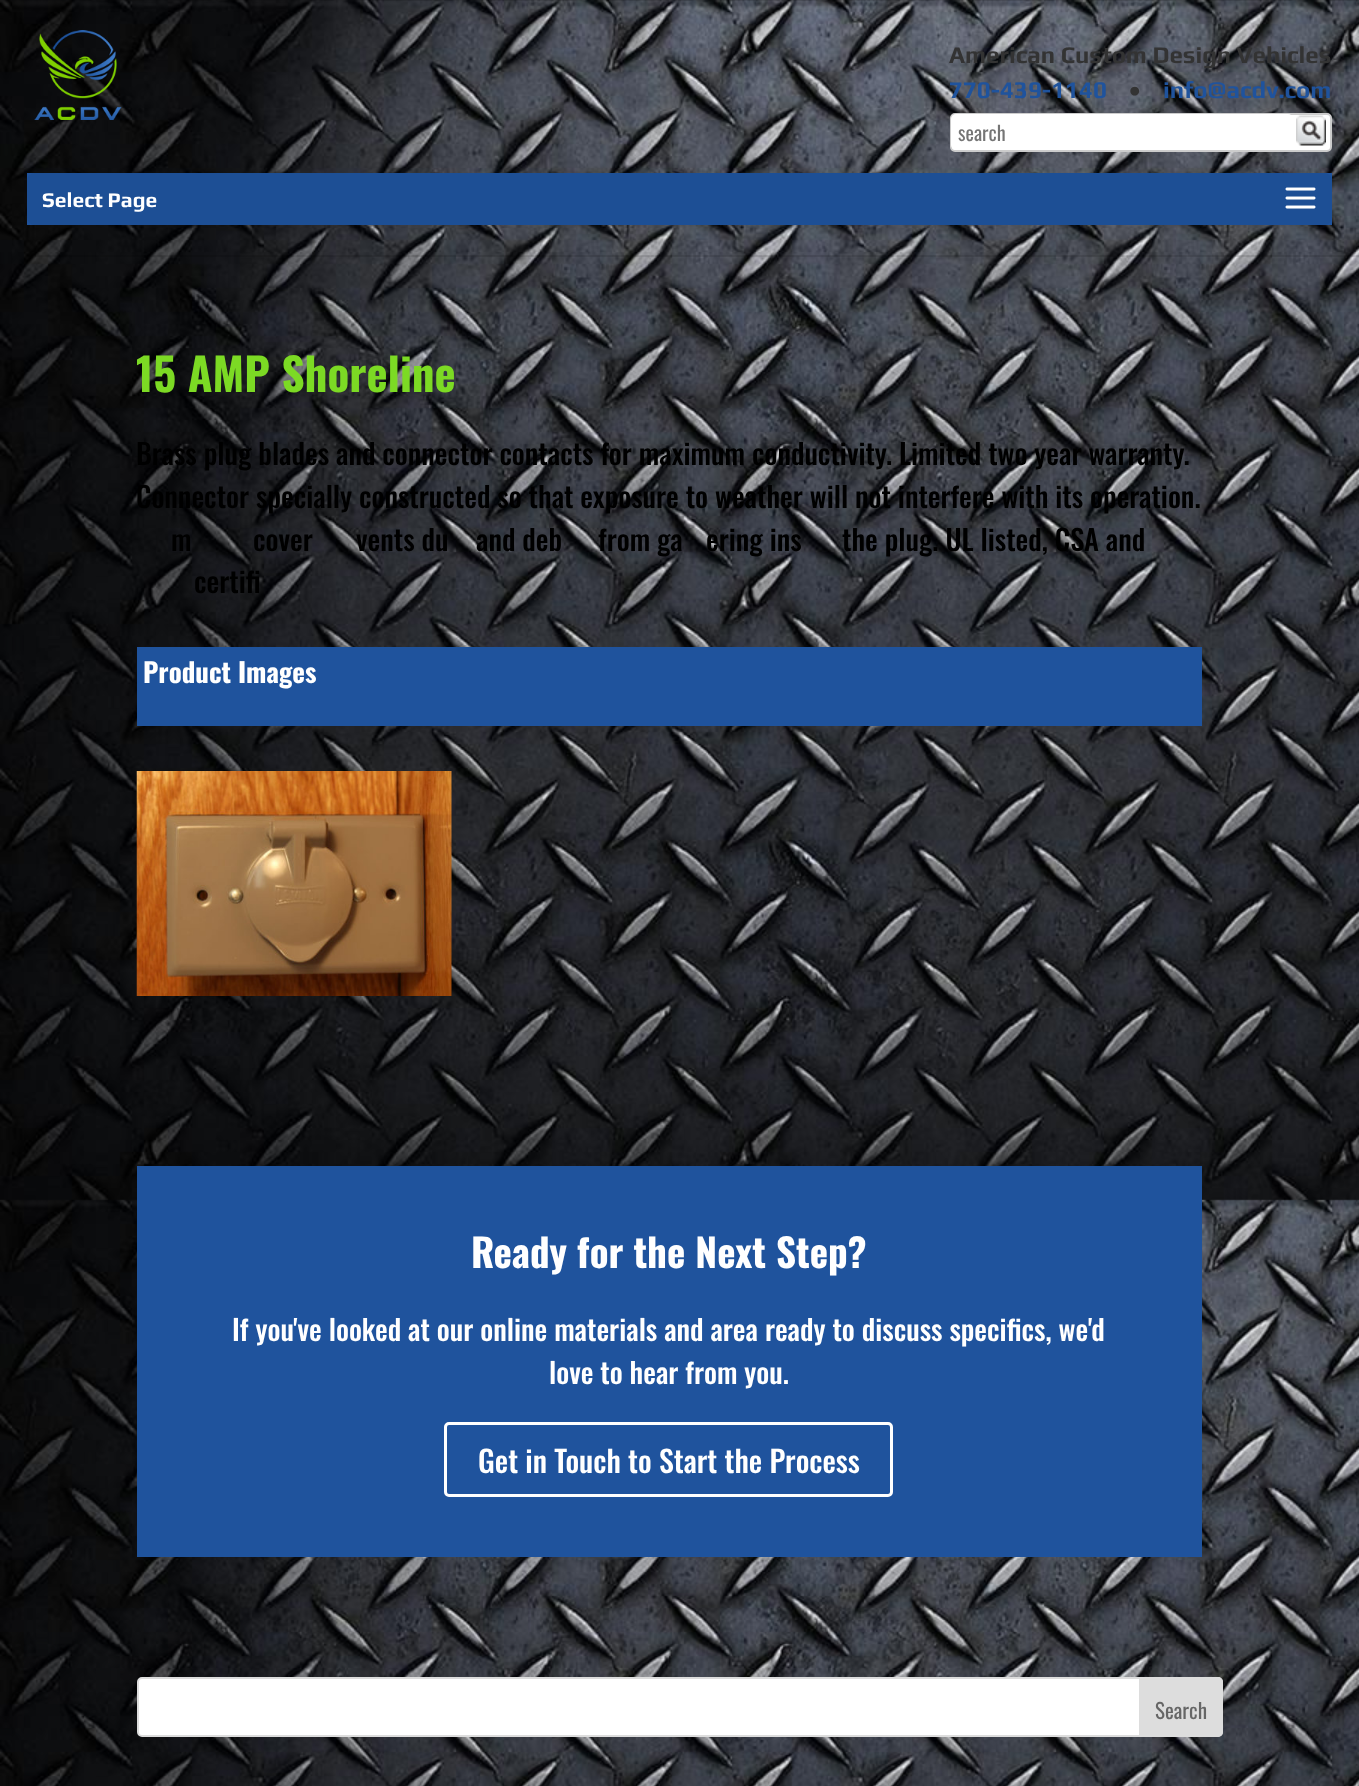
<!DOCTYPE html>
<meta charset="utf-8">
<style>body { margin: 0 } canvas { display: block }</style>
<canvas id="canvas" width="1359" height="1786"></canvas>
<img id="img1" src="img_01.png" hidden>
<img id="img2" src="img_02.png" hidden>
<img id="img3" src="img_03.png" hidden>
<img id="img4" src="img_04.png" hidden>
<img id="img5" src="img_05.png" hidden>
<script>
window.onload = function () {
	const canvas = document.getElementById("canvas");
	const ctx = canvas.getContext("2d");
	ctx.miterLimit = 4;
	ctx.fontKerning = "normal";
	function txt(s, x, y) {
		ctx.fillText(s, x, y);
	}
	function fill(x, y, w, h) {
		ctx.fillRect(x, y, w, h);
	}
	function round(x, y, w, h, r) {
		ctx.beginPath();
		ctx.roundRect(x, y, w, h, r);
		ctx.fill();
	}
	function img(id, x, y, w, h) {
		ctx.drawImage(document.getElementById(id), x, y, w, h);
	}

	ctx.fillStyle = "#FFFFFF";
	fill(0, 0, 1359, 1786);
	img("img1", 0, 0, 1359, 1786);
	ctx.fillStyle = "rgba(0, 0, 0, 0.1)";
	fill(35, 255, 1324, 2);
	img("img2", 34, 30, 88, 90);
	ctx.fillStyle = "#FFFFFF";
	ctx.beginPath();
	ctx.roundRect(951, 114, 380, 37, 4);
	ctx.fill();
	ctx.strokeStyle = "#CCCCCC";
	ctx.lineWidth = 2;
	ctx.stroke();
	round(951, 114, 342, 36, 5);
	img("img3", 1296, 115, 30, 31);
	ctx.fillStyle = "#1F539D";
	fill(27, 173, 1305, 52);
	ctx.fillStyle = "#1D4F95";
	round(27, 173, 1305, 52, 8);
	img("img4", 1285, 187, 31, 22);
	ctx.fillStyle = "#1F539D";
	fill(137, 647, 1065, 79);
	img("img5", 136, 771, 316, 225);
	fill(137, 1166, 1065, 391);
	ctx.beginPath();
	ctx.roundRect(445.5, 1423.5, 446, 72, 3.5);
	ctx.strokeStyle = "#FFFFFF";
	ctx.lineWidth = 3;
	ctx.stroke();
	ctx.fillStyle = "#FFFFFF";
	ctx.beginPath();
	ctx.roundRect(138, 1678, 1084, 58, 4);
	ctx.fill();
	ctx.strokeStyle = "#DDDDDD";
	ctx.lineWidth = 2;
	ctx.stroke();
	ctx.fillStyle = "#DDDDDD";
	ctx.beginPath();
	ctx.roundRect(1140, 1678, 82, 58, [0, 4, 4, 0]);
	ctx.fill();
	ctx.stroke();
	ctx.font = "bold 24px Play";
	ctx.fillStyle = "#333333";
	txt("American Custom Design Vehicles", 949, 63);
	ctx.fillStyle = "#1F539D";
	txt("770-439-1140", 949, 98);
	ctx.fillStyle = "#333333";
	txt("•", 1129, 98);
	ctx.fillStyle = "#1F539D";
	txt("info@acdv.com", 1163, 98);
	ctx.font = "20px Oswald";
	ctx.fillStyle = "#757575";
	txt("search", 958, 141);
	ctx.font = "bold 21px Play";
	ctx.fillStyle = "#FFFFFF";
	txt("Select Page", 42, 207);
	ctx.font = "bold 45px Oswald";
	ctx.fillStyle = "#7CDA24";
	txt("15 AMP Shoreline", 136, 392);
	ctx.font = "500 28.5px Oswald";
	ctx.fillStyle = "#000000";
	txt("Brass plug blades and connector contacts for maximum conductivity. Limited two year warranty.", 136, 465);
	txt("Connector specially constructed so that exposure to weather will not interfere with its operation.", 136, 508);
	txt("m", 171, 551);
	txt("cover", 253, 551);
	txt("vents du", 356, 551);
	txt("and deb", 476, 551);
	txt("from ga", 598, 551);
	txt("ering ins", 706, 551);
	txt("the plug. UL listed, CSA and", 842, 551);
	txt("certifi", 194, 593);
	ctx.font = "bold 27px Oswald";
	ctx.fillStyle = "#FFFFFF";
	txt("Product Images", 143, 683);
	ctx.font = "bold 39px Oswald";
	txt("Ready for the Next Step?", 471, 1268);
	ctx.font = "500 28.5px Oswald";
	txt("If you've looked at our online materials and area ready to discuss specifics, we'd", 232, 1341);
	txt("love to hear from you.", 549, 1384);
	ctx.font = "500 30px Oswald";
	txt("Get in Touch to Start the Process", 478, 1473);
	ctx.font = "21px Oswald";
	ctx.fillStyle = "#666666";
	txt("Search", 1155, 1719);
};
</script>
